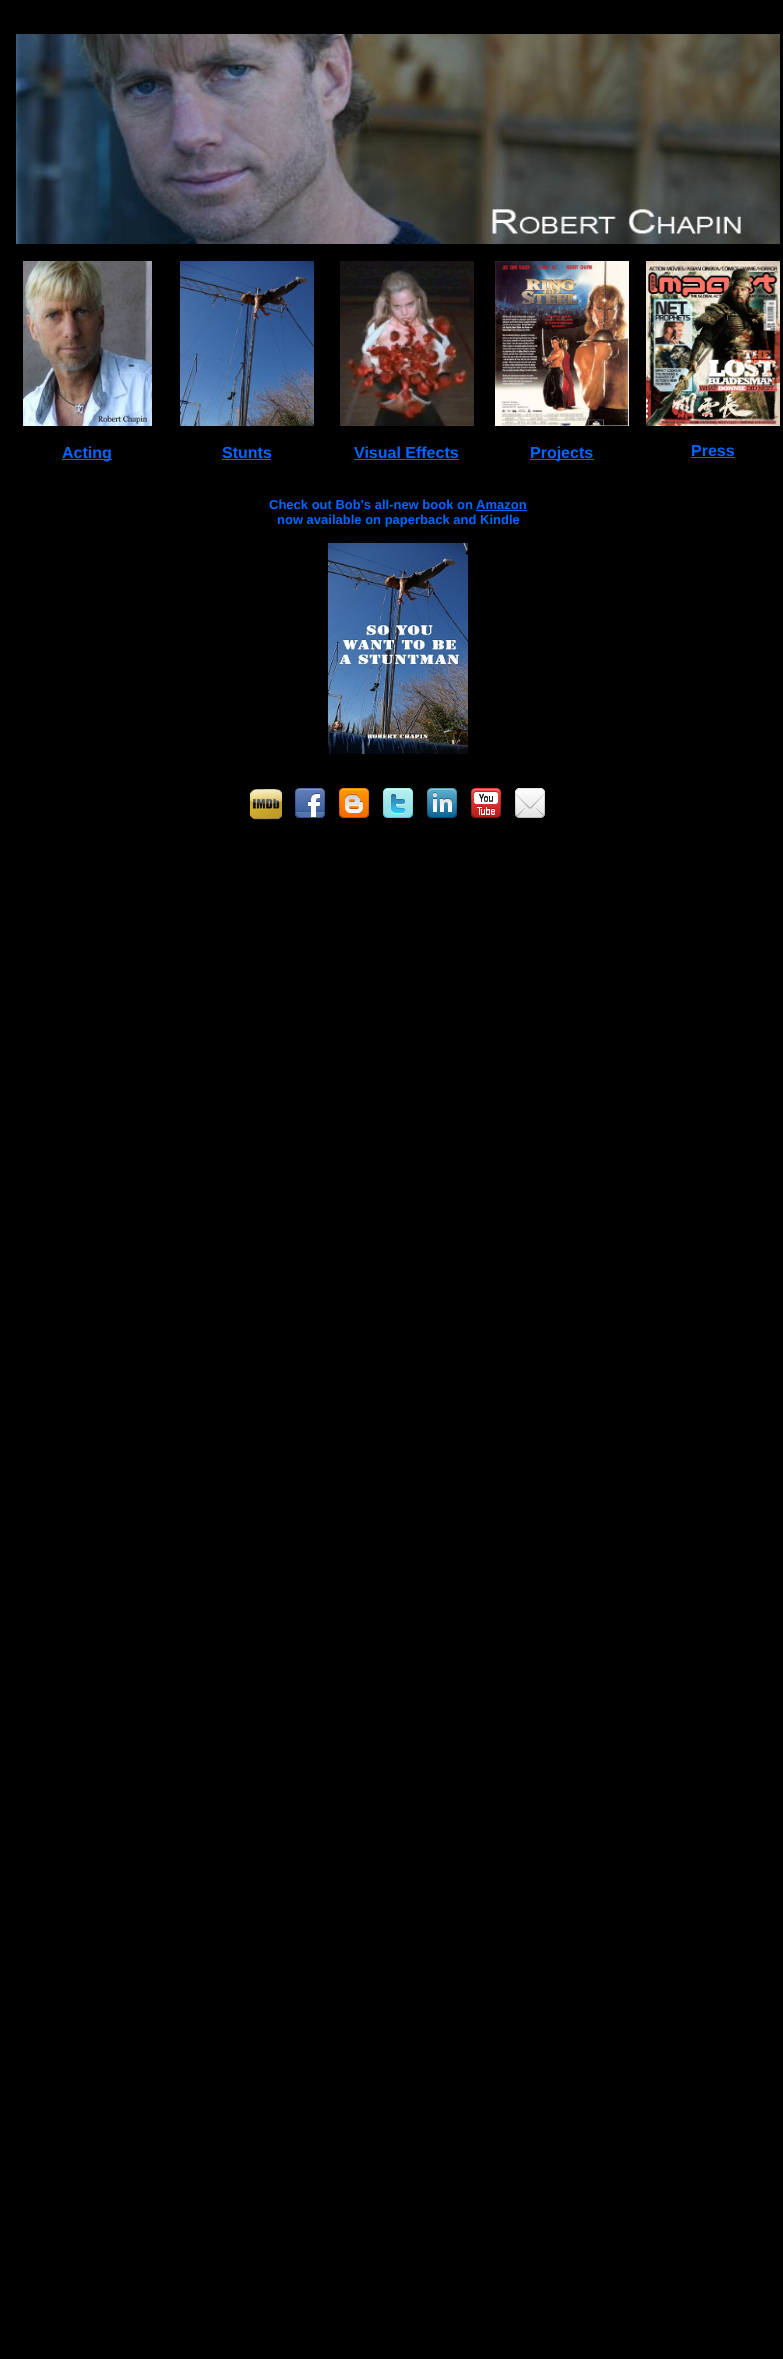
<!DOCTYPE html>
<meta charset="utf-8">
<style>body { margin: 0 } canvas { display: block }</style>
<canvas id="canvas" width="783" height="2359"></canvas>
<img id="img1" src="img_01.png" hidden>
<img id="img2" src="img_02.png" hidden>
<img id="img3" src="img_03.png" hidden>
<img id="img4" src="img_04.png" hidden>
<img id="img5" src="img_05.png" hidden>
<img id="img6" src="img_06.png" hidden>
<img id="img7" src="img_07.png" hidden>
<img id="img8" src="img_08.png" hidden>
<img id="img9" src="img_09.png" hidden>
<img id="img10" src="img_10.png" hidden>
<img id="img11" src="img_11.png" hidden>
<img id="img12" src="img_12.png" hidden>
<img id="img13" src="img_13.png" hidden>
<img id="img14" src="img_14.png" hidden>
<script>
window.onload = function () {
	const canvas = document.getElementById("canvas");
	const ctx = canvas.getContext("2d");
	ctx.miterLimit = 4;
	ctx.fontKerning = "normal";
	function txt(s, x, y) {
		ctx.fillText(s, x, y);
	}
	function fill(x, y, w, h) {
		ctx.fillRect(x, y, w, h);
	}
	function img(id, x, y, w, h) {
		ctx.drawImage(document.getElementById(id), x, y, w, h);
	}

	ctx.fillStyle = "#000000";
	fill(0, 0, 783, 2359);
	img("img1", 16, 34, 764, 210);
	img("img2", 23, 261, 129, 165);
	ctx.fillStyle = "#0066FF";
	fill(62, 459, 50, 1);
	img("img3", 180, 261, 134, 165);
	fill(222, 459, 49, 1);
	img("img4", 340, 261, 134, 165);
	fill(354, 459, 105, 1);
	img("img5", 495, 261, 134, 165);
	fill(530, 459, 64, 1);
	img("img6", 646, 261, 134, 165);
	fill(691, 457, 44, 1);
	fill(476, 510, 51, 1);
	img("img7", 328, 543, 140, 211);
	img("img8", 250, 788, 32, 32);
	img("img9", 295, 788, 30, 30);
	img("img10", 339, 788, 30, 30);
	img("img11", 383, 788, 30, 30);
	img("img12", 427, 788, 30, 30);
	img("img13", 471, 788, 30, 30);
	img("img14", 515, 788, 30, 30);
	ctx.font = "bold 16px Liberation Sans";
	txt("Acting", 62, 458);
	txt("Stunts", 222, 458);
	txt("Visual Effects", 354, 458);
	txt("Projects", 530, 458);
	txt("Press", 691, 456);
	ctx.font = "bold 13px Liberation Sans";
	txt("Check out Bob's all-new book on Amazon", 269, 509);
	txt("now available on paperback and Kindle", 277, 524);
};
</script>
